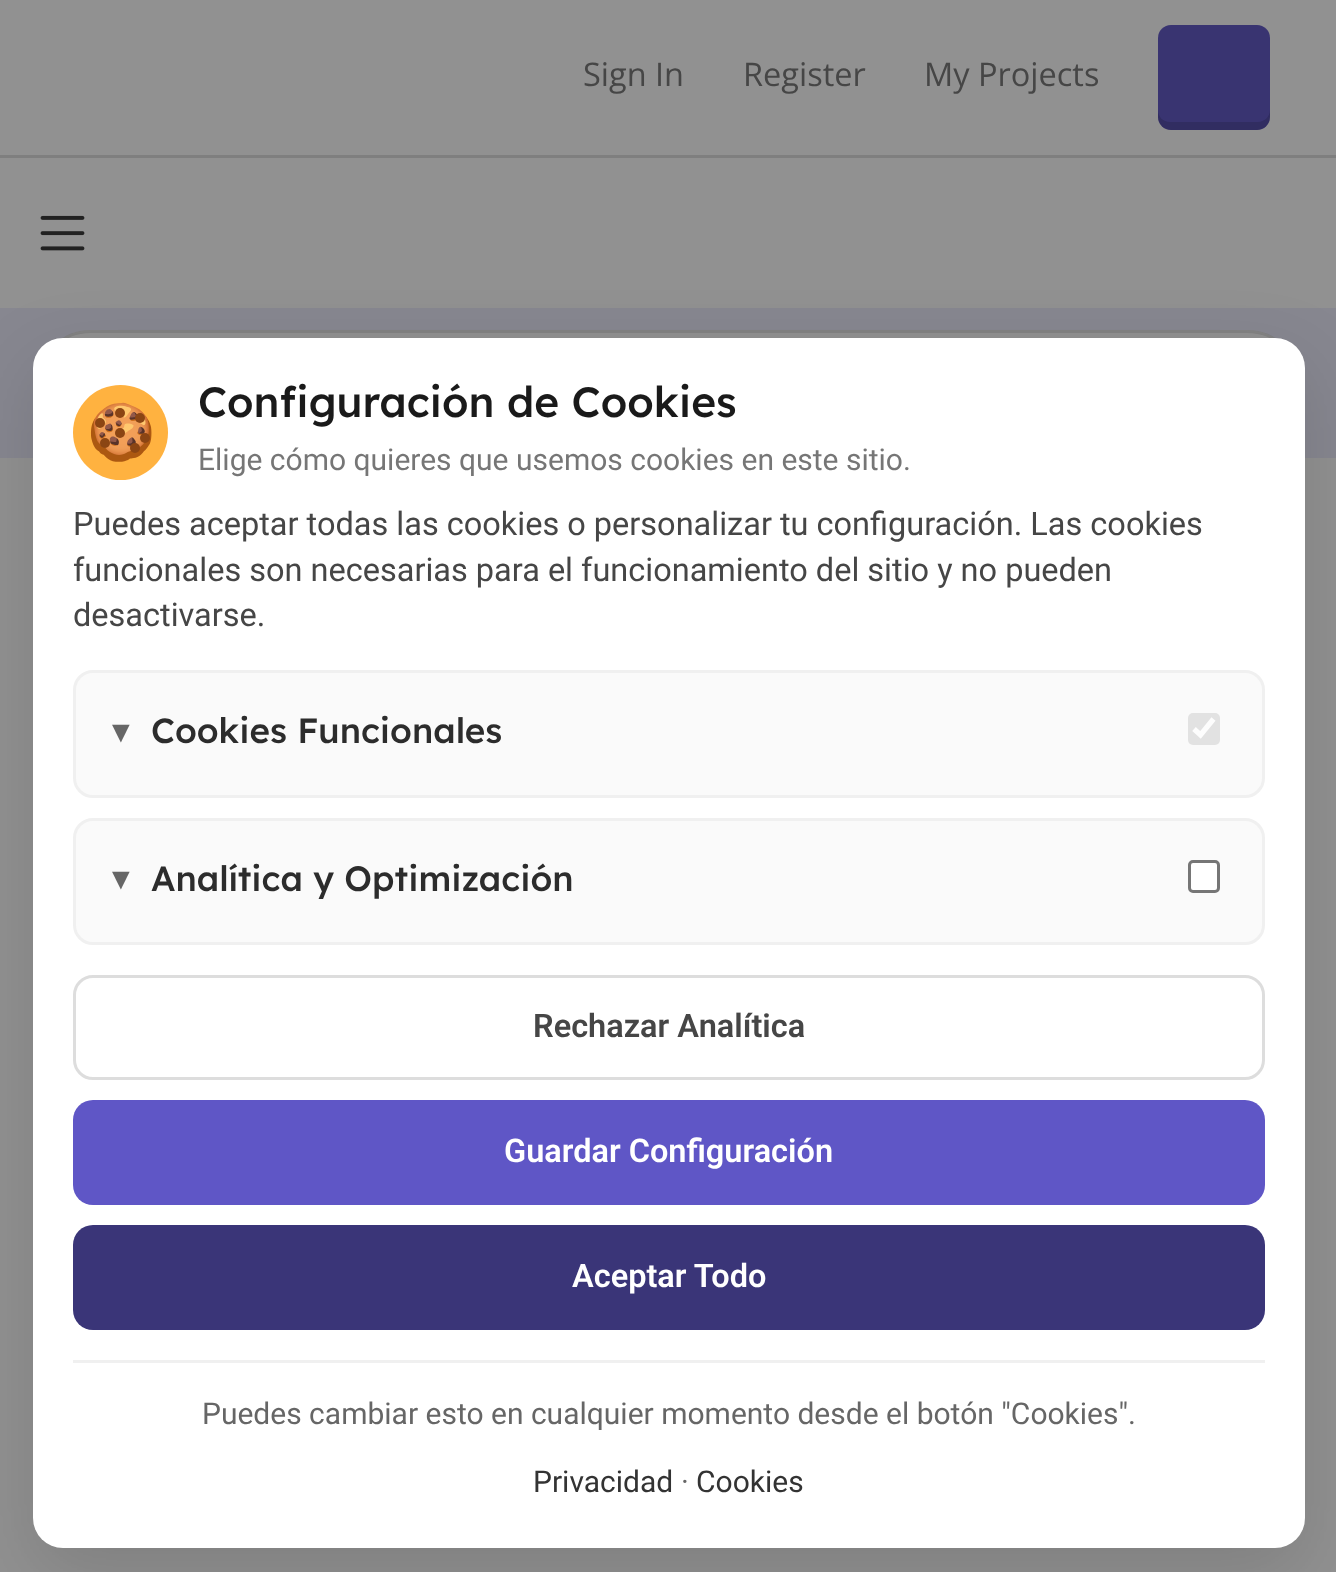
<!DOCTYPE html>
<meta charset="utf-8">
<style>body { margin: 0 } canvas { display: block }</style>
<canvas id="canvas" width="1336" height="1572"></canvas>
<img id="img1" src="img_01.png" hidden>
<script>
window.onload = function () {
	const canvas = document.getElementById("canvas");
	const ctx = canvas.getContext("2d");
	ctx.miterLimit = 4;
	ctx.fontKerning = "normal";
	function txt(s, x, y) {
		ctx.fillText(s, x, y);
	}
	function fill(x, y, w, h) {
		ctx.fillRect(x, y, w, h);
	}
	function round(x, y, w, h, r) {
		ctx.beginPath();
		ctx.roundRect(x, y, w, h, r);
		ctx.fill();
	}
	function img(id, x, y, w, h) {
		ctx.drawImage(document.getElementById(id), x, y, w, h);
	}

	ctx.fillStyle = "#919191";
	fill(0, 0, 1336, 1572);
	ctx.fillStyle = "#7F7F7F";
	fill(0, 155, 1336, 3);
	ctx.fillStyle = "#393471";
	round(1158, 25, 112, 105, 13);
	ctx.fillStyle = "rgba(5, 5, 5, 0.15)";
	ctx.beginPath();
	ctx.moveTo(1158, 110);
	ctx.lineTo(1158, 117);
	ctx.bezierCurveTo(1158, 124, 1164, 130, 1171, 130);
	ctx.lineTo(1257, 130);
	ctx.bezierCurveTo(1264, 130, 1270, 124, 1270, 117);
	ctx.lineTo(1270, 110);
	ctx.bezierCurveTo(1270, 117, 1264, 122, 1258, 122);
	ctx.lineTo(1170, 122);
	ctx.bezierCurveTo(1163, 122, 1158, 117, 1158, 110);
	ctx.closePath();
	ctx.fill();
	img("img1", 40, 215, 45, 36);
	ctx.fillStyle = "#878790";
	fill(0, 308, 1336, 150);
	ctx.fillStyle = "#919191";
	round(38, 330, 1262, 105, 52.5);
	ctx.beginPath();
	ctx.roundRect(39.5, 331.5, 1259, 102, 51);
	ctx.strokeStyle = "rgba(5, 5, 5, 0.1)";
	ctx.lineWidth = 3;
	ctx.stroke();
	ctx.fillStyle = "rgba(0, 0, 0, 0.12)";
	ctx.filter = "blur(37.5px)";
	ctx.beginPath();
	ctx.roundRect(33, 363, 1272, 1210, 30);
	ctx.fill();
	ctx.filter = "none";
	ctx.fillStyle = "#FFFFFF";
	round(33, 338, 1272, 1210, 30);
	ctx.fillStyle = "#FFB240";
	ctx.beginPath();
	ctx.arc(120.5, 432.5, 47.5, 0, Math.PI * 2);
	ctx.fill();
	ctx.fillStyle = "#FAFAFA";
	ctx.beginPath();
	ctx.roundRect(74.5, 671.5, 1189, 125, 18.5);
	ctx.fill();
	ctx.strokeStyle = "#F0F0F0";
	ctx.stroke();
	ctx.fillStyle = "#E2E2E2";
	round(1188, 713, 32, 32, 5);
	ctx.beginPath();
	ctx.moveTo(1194, 729);
	ctx.lineTo(1200.5, 735);
	ctx.lineTo(1213.5, 719);
	ctx.strokeStyle = "#FDFDFD";
	ctx.lineWidth = 5.2;
	ctx.stroke();
	ctx.fillStyle = "#FAFAFA";
	ctx.beginPath();
	ctx.roundRect(74.5, 819.5, 1189, 124, 18.5);
	ctx.fill();
	ctx.strokeStyle = "#F0F0F0";
	ctx.lineWidth = 3;
	ctx.stroke();
	ctx.fillStyle = "#FFFFFF";
	ctx.beginPath();
	ctx.roundRect(1189.5, 861.5, 29, 30, 3.5);
	ctx.fill();
	ctx.strokeStyle = "#767676";
	ctx.stroke();
	ctx.beginPath();
	ctx.roundRect(74.5, 976.5, 1189, 102, 18.5);
	ctx.strokeStyle = "#DDDDDD";
	ctx.stroke();
	ctx.fillStyle = "#5F56C6";
	round(73, 1100, 1192, 105, 20);
	ctx.fillStyle = "#3A3578";
	round(73, 1225, 1192, 105, 20);
	ctx.fillStyle = "#F0F0F0";
	fill(73, 1360, 1192, 3);
	ctx.font = "32.5px Open Sans";
	ctx.fillStyle = "#464646";
	txt("Sign In", 583, 86);
	txt("Register", 743, 86);
	txt("My Projects", 924, 86);
	ctx.font = "55px Noto Color Emoji";
	ctx.fillStyle = "#767676";
	txt("🍪", 87, 451);
	ctx.fillStyle = "#8B4513";
	ctx.beginPath();
	ctx.arc(145, 438, 5, 0, Math.PI * 2);
	ctx.fill();
	ctx.beginPath();
	ctx.arc(120, 413, 5, 0, Math.PI * 2);
	ctx.fill();
	ctx.beginPath();
	ctx.arc(100, 423, 5, 0, Math.PI * 2);
	ctx.fill();
	ctx.beginPath();
	ctx.arc(135, 448, 5, 0, Math.PI * 2);
	ctx.fill();
	ctx.beginPath();
	ctx.arc(105, 443, 5, 0, Math.PI * 2);
	ctx.fill();
	ctx.beginPath();
	ctx.arc(140, 418, 5, 0, Math.PI * 2);
	ctx.fill();
	ctx.beginPath();
	ctx.arc(120, 433, 5, 0, Math.PI * 2);
	ctx.fill();
	ctx.font = "500 42.5px Lexend Deca";
	ctx.fillStyle = "#1A1A1A";
	txt("Configuración de Cookies", 198, 417);
	ctx.font = "30px Roboto";
	ctx.fillStyle = "#767676";
	txt("Elige cómo quieres que usemos cookies en este sitio.", 198, 470);
	ctx.font = "32.5px Roboto";
	ctx.fillStyle = "#464646";
	txt("Puedes aceptar todas las cookies o personalizar tu configuración. Las cookies", 73, 535);
	txt("funcionales son necesarias para el funcionamiento del sitio y no pueden", 73, 581);
	txt("desactivarse.", 73, 626);
	ctx.font = "30px Liberation Sans";
	ctx.fillStyle = "#666666";
	txt("▼", 106, 742);
	ctx.font = "500 35px Lexend Deca";
	ctx.fillStyle = "#2C2C2C";
	txt("Cookies Funcionales", 151, 743);
	ctx.font = "30px Liberation Sans";
	ctx.fillStyle = "#666666";
	txt("▼", 106, 889);
	ctx.font = "500 35px Lexend Deca";
	ctx.fillStyle = "#2C2C2C";
	txt("Analítica y Optimización", 151, 891);
	ctx.font = "600 32.5px Roboto";
	ctx.fillStyle = "#464646";
	txt("Rechazar Analítica", 533, 1037);
	ctx.fillStyle = "#FFFFFF";
	txt("Guardar Configuración", 504, 1162);
	txt("Aceptar Todo", 572, 1287);
	ctx.font = "30px Roboto";
	ctx.fillStyle = "#666666";
	txt("Puedes cambiar esto en cualquier momento desde el botón \"Cookies\".", 202, 1424);
	ctx.fillStyle = "#333333";
	txt("Privacidad", 533, 1492);
	ctx.fillStyle = "#666666";
	txt("·", 681, 1492);
	ctx.fillStyle = "#333333";
	txt("Cookies", 696, 1492);
};
</script>
